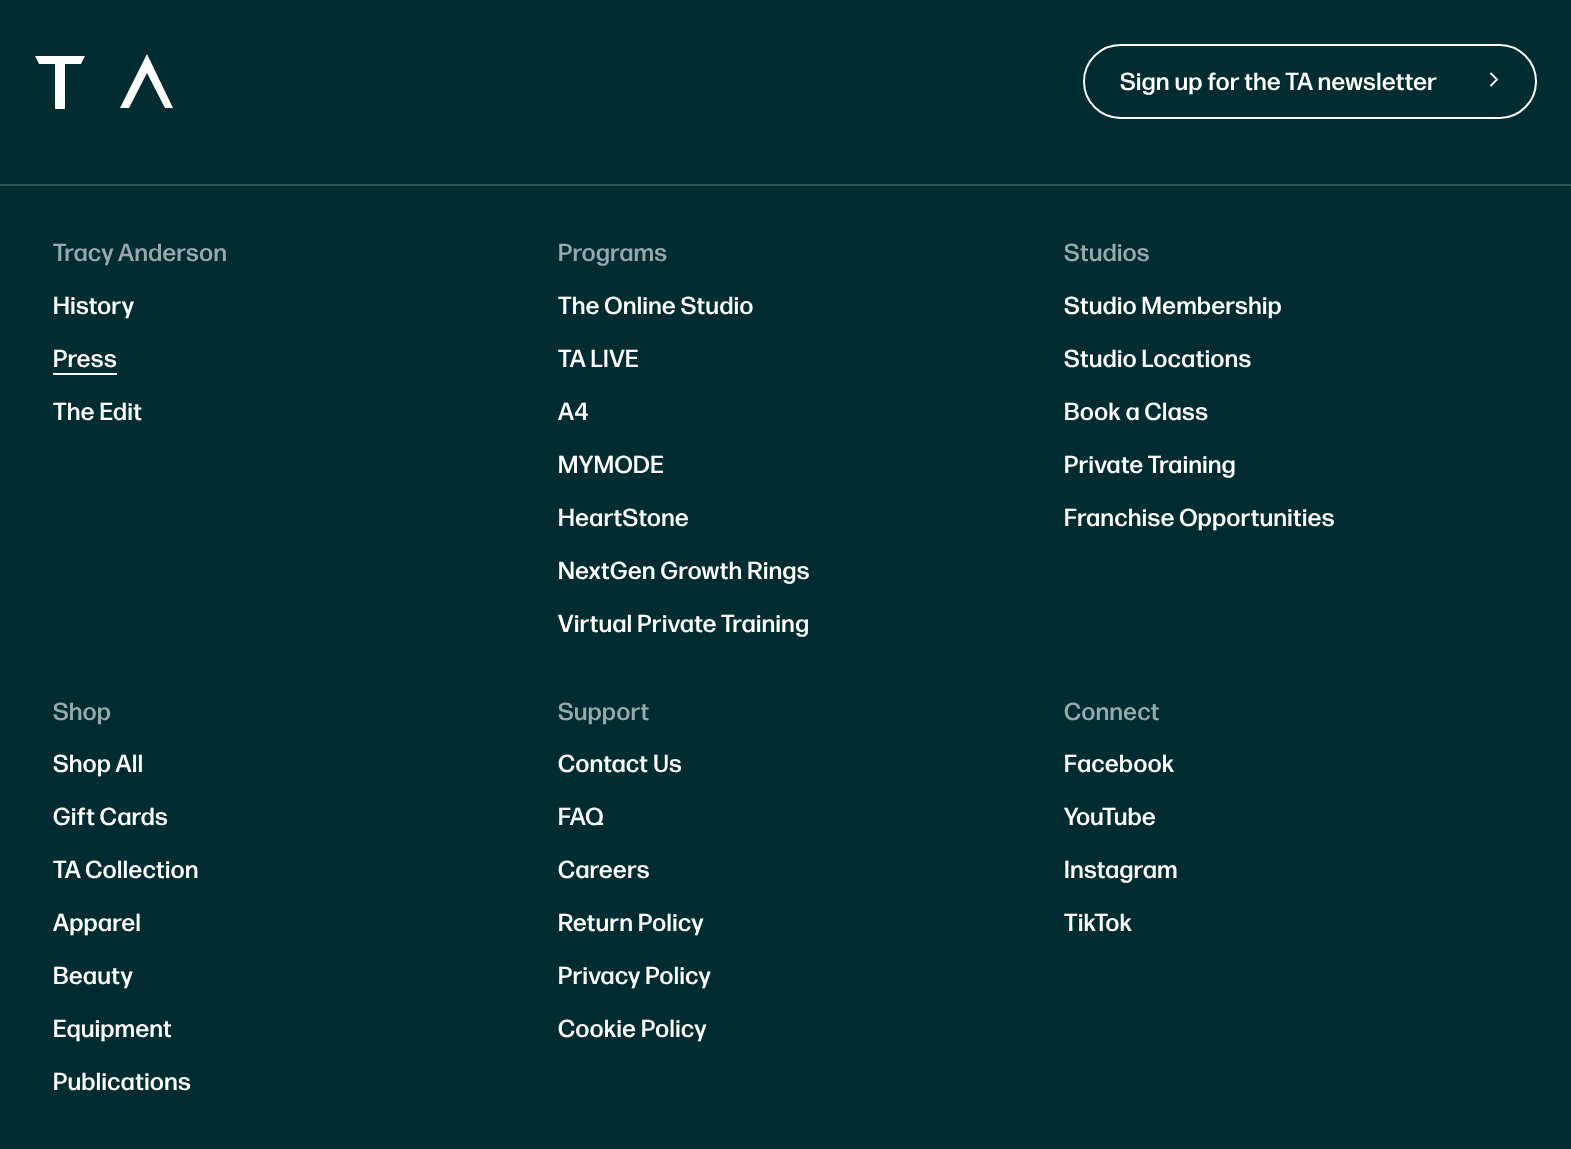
<!DOCTYPE html>
<meta charset="utf-8">
<style>body { margin: 0 } canvas { display: block }</style>
<canvas id="canvas" width="1571" height="1149"></canvas>
<script>
window.onload = function () {
	const canvas = document.getElementById("canvas");
	const ctx = canvas.getContext("2d");
	ctx.miterLimit = 4;
	ctx.fontKerning = "normal";
	function txt(s, x, y) {
		ctx.fillText(s, x, y);
	}
	function fill(x, y, w, h) {
		ctx.fillRect(x, y, w, h);
	}

	ctx.fillStyle = "#002C32";
	fill(0, 0, 1571, 1149);
	ctx.fillStyle = "#32565A";
	fill(0, 184, 1571, 2);
	ctx.fillStyle = "#FFFFFF";
	ctx.beginPath();
	ctx.moveTo(85, 56);
	ctx.lineTo(81, 64);
	ctx.lineTo(65, 64);
	ctx.lineTo(65, 109);
	ctx.lineTo(55, 109);
	ctx.lineTo(55, 64);
	ctx.lineTo(39, 64);
	ctx.lineTo(35, 56);
	ctx.closePath();
	ctx.fill();
	ctx.beginPath();
	ctx.moveTo(147, 54);
	ctx.lineTo(120, 108);
	ctx.lineTo(129, 108);
	ctx.lineTo(147, 73);
	ctx.lineTo(165, 108);
	ctx.lineTo(173, 108);
	ctx.closePath();
	ctx.fill();
	ctx.beginPath();
	ctx.roundRect(1084, 45, 452, 73, 36.5);
	ctx.strokeStyle = "#FFFFFF";
	ctx.lineWidth = 2;
	ctx.stroke();
	ctx.beginPath();
	ctx.moveTo(1490.5, 86);
	ctx.lineTo(1497, 79.5);
	ctx.lineTo(1490.5, 73);
	ctx.lineWidth = 1.8;
	ctx.stroke();
	fill(53, 373, 64, 2);
	ctx.letterSpacing = "0.5px";
	ctx.font = "500 24.5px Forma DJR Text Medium";
	txt("Sign up for the TA newsletter", 1120, 90);
	ctx.fillStyle = "#97A9AB";
	txt("Tracy Anderson", 53, 261);
	ctx.fillStyle = "#FFFFFF";
	txt("History", 53, 314);
	txt("Press", 53, 367);
	txt("The Edit", 53, 420);
	ctx.fillStyle = "#97A9AB";
	txt("Programs", 558, 261);
	ctx.fillStyle = "#FFFFFF";
	txt("The Online Studio", 558, 314);
	txt("TA LIVE", 558, 367);
	txt("A4", 558, 420);
	txt("MYMODE", 558, 473);
	txt("HeartStone", 558, 526);
	txt("NextGen Growth Rings", 558, 579);
	txt("Virtual Private Training", 558, 632);
	ctx.fillStyle = "#97A9AB";
	txt("Studios", 1064, 261);
	ctx.fillStyle = "#FFFFFF";
	txt("Studio Membership", 1064, 314);
	txt("Studio Locations", 1064, 367);
	txt("Book a Class", 1064, 420);
	txt("Private Training", 1064, 473);
	txt("Franchise Opportunities", 1064, 526);
	ctx.fillStyle = "#97A9AB";
	txt("Shop", 53, 720);
	ctx.fillStyle = "#FFFFFF";
	txt("Shop All", 53, 772);
	txt("Gift Cards", 53, 825);
	txt("TA Collection", 53, 878);
	txt("Apparel", 53, 931);
	txt("Beauty", 53, 984);
	txt("Equipment", 53, 1037);
	txt("Publications", 53, 1090);
	ctx.fillStyle = "#97A9AB";
	txt("Support", 558, 720);
	ctx.fillStyle = "#FFFFFF";
	txt("Contact Us", 558, 772);
	txt("FAQ", 558, 825);
	txt("Careers", 558, 878);
	txt("Return Policy", 558, 931);
	txt("Privacy Policy", 558, 984);
	txt("Cookie Policy", 558, 1037);
	ctx.fillStyle = "#97A9AB";
	txt("Connect", 1064, 720);
	ctx.fillStyle = "#FFFFFF";
	txt("Facebook", 1064, 772);
	txt("YouTube", 1064, 825);
	txt("Instagram", 1064, 878);
	txt("TikTok", 1064, 931);
};
</script>
